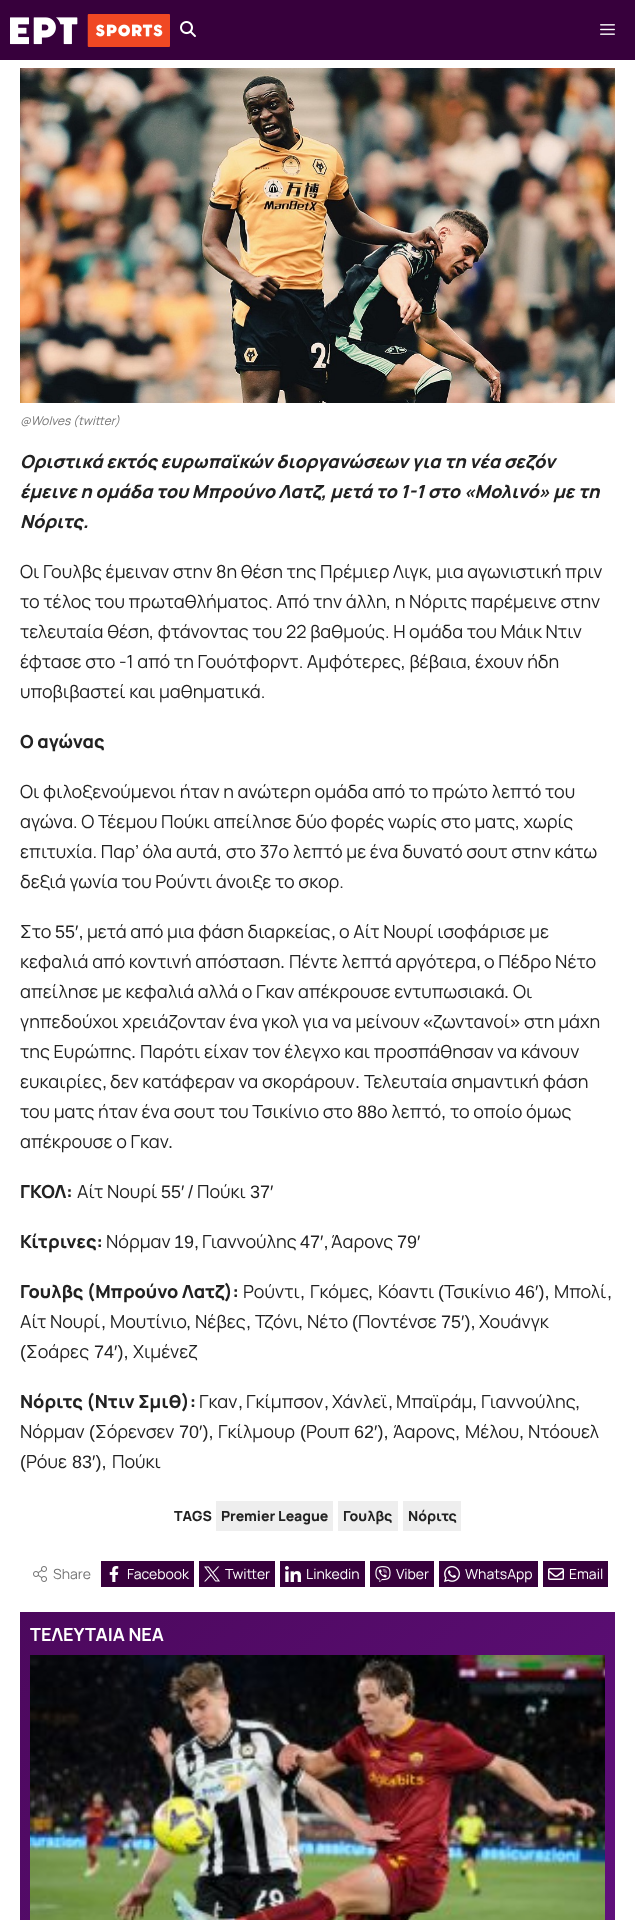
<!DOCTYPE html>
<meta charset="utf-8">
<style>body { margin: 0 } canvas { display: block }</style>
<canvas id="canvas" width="635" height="1920"></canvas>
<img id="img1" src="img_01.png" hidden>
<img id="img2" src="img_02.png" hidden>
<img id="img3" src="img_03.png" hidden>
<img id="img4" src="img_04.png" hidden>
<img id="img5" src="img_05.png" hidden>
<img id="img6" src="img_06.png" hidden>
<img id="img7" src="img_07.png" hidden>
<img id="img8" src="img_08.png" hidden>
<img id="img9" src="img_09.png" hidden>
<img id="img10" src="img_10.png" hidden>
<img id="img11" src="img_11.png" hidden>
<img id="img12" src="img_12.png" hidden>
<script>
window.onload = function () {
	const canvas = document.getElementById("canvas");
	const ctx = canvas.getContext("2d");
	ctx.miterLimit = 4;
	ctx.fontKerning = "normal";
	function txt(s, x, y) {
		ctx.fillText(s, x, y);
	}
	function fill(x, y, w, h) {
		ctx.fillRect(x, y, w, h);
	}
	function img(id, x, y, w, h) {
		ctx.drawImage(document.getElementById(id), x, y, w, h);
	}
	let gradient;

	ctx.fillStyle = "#FFFFFF";
	fill(0, 0, 635, 1920);
	ctx.fillStyle = "#37003C";
	fill(0, 0, 635, 60);
	img("img1", 10, 14, 160, 33);
	img("img2", 180, 21, 16, 16);
	img("img3", 600, 24, 15, 11);
	img("img4", 20, 68, 595, 335);
	ctx.fillStyle = "#EEEEEE";
	fill(216, 1501, 117, 30);
	fill(338, 1501, 60, 30);
	fill(403, 1501, 58, 30);
	img("img5", 33, 1566, 14, 16);
	ctx.fillStyle = "#37003C";
	fill(101, 1561, 93, 26);
	img("img6", 109, 1566, 10, 16);
	fill(199, 1561, 76, 26);
	img("img7", 204, 1566, 16, 16);
	fill(280, 1561, 85, 26);
	img("img8", 285, 1566, 16, 16);
	fill(370, 1561, 64, 26);
	img("img9", 375, 1566, 16, 16);
	fill(439, 1561, 99, 26);
	img("img10", 444, 1566, 16, 16);
	fill(543, 1561, 65, 26);
	img("img11", 548, 1568, 16, 12);
	gradient = ctx.createLinearGradient(-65, 1697, 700, 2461);
	gradient.addColorStop(0, "#4C085D");
	gradient.addColorStop(1, "#6D1590");
	ctx.fillStyle = gradient;
	fill(20, 1612, 595, 308);
	img("img12", 30, 1655, 575, 265);
	ctx.font = "italic 12px Manrope";
	ctx.fillStyle = "#757575";
	txt("@Wolves (twitter)", 20, 425);
	ctx.font = "italic 800 18px Manrope";
	ctx.fillStyle = "#222222";
	txt("Οριστικά εκτός ευρωπαϊκών διοργανώσεων για τη νέα σεζόν", 20, 468);
	txt("έμεινε η ομάδα του Μπρούνο Λατζ, μετά το 1-1 στο «Μολινό» με τη", 20, 498);
	txt("Νόριτς.", 20, 528);
	ctx.font = "18px Manrope";
	txt("Οι Γουλβς έμειναν στην 8η θέση της Πρέμιερ Λιγκ, μια αγωνιστική πριν", 20, 578);
	txt("το τέλος του πρωταθλήματος. Από την άλλη, η Νόριτς παρέμεινε στην", 20, 608);
	txt("τελευταία θέση, φτάνοντας του 22 βαθμούς. Η ομάδα του Μάικ Ντιν", 20, 638);
	txt("έφτασε στο -1 από τη Γουότφορντ. Αμφότερες, βέβαια, έχουν ήδη", 20, 668);
	txt("υποβιβαστεί και μαθηματικά.", 20, 698);
	ctx.font = "800 18px Manrope";
	txt("Ο αγώνας", 20, 748);
	ctx.font = "18px Manrope";
	txt("Οι φιλοξενούμενοι ήταν η ανώτερη ομάδα από το πρώτο λεπτό του", 20, 798);
	txt("αγώνα. Ο Τέεμου Πούκι απείλησε δύο φορές νωρίς στο ματς, χωρίς", 20, 828);
	txt("επιτυχία. Παρ’ όλα αυτά, στο 37ο λεπτό με ένα δυνατό σουτ στην κάτω", 20, 858);
	txt("δεξιά γωνία του Ρούντι άνοιξε το σκορ.", 20, 888);
	txt("Στο", 20, 938);
	ctx.font = "18px Liberation Sans";
	txt("55′,", 55, 938);
	ctx.font = "18px Manrope";
	txt("μετά από μια φάση διαρκείας", 87, 938);
	ctx.font = "18px Liberation Sans";
	txt(",", 331, 938);
	ctx.font = "18px Manrope";
	txt("ο Αίτ Νουρί ισοφάρισε με", 339, 938);
	txt("κεφαλιά από κοντινή απόσταση", 20, 968);
	ctx.font = "18px Liberation Sans";
	txt(".", 280, 968);
	ctx.font = "18px Manrope";
	txt("Πέντε λεπτά αργότερα", 289, 968);
	ctx.font = "18px Liberation Sans";
	txt(",", 476, 968);
	ctx.font = "18px Manrope";
	txt("ο Πέδρο Νέτο", 484, 968);
	txt("απείλησε με κεφαλιά αλλά ο Γκαν απέκρουσε εντυπωσιακά", 20, 998);
	ctx.font = "18px Liberation Sans";
	txt(".", 504, 998);
	ctx.font = "18px Manrope";
	txt("Οι", 513, 998);
	txt("γηπεδούχοι χρειάζονταν ένα γκολ για να μείνουν", 20, 1028);
	ctx.font = "18px Liberation Sans";
	txt("«", 423, 1028);
	ctx.font = "18px Manrope";
	txt("ζωντανοί", 433, 1028);
	ctx.font = "18px Liberation Sans";
	txt("»", 510, 1028);
	ctx.font = "18px Manrope";
	txt("στη μάχη", 524, 1028);
	txt("της Ευρώπης", 20, 1058);
	ctx.font = "18px Liberation Sans";
	txt(".", 131, 1058);
	ctx.font = "18px Manrope";
	txt("Παρότι είχαν τον έλεγχο και προσπάθησαν να κάνουν", 140, 1058);
	txt("ευκαιρίες", 20, 1088);
	ctx.font = "18px Liberation Sans";
	txt(",", 102, 1088);
	ctx.font = "18px Manrope";
	txt("δεν κατάφεραν να σκοράρουν", 110, 1088);
	ctx.font = "18px Liberation Sans";
	txt(".", 355, 1088);
	ctx.font = "18px Manrope";
	txt("Τελευταία σημαντική φάση", 364, 1088);
	txt("του ματς ήταν ένα σουτ του Τσικίνιο στο", 20, 1118);
	ctx.font = "18px Liberation Sans";
	txt("88", 357, 1118);
	ctx.font = "18px Manrope";
	txt("ο λεπτό", 377, 1118);
	ctx.font = "18px Liberation Sans";
	txt(",", 441, 1118);
	ctx.font = "18px Manrope";
	txt("το οποίο όμως", 450, 1118);
	txt("απέκρουσε ο Γκαν", 20, 1148);
	ctx.font = "18px Liberation Sans";
	txt(".", 168, 1148);
	ctx.font = "800 18px Manrope";
	txt("ΓΚΟΛ:", 20, 1198);
	ctx.font = "18px Manrope";
	txt("Αίτ Νουρί", 77, 1198);
	ctx.font = "18px Liberation Sans";
	txt("55′", 161, 1198);
	txt("/", 188, 1198);
	ctx.font = "18px Manrope";
	txt("Πούκι", 197, 1198);
	ctx.font = "18px Liberation Sans";
	txt("37′", 250, 1198);
	ctx.font = "800 18px Manrope";
	txt("Κίτρινες:", 20, 1248);
	ctx.font = "18px Manrope";
	txt("Νόρμαν", 106, 1248);
	ctx.font = "18px Liberation Sans";
	txt("19,", 174, 1248);
	ctx.font = "18px Manrope";
	txt("Γιαννούλης", 202, 1248);
	ctx.font = "18px Liberation Sans";
	txt("47′,", 300, 1248);
	ctx.font = "18px Manrope";
	txt("Άαρονς", 331, 1248);
	ctx.font = "18px Liberation Sans";
	txt("79′", 397, 1248);
	ctx.font = "800 18px Manrope";
	txt("Γουλβς (Μπρούνο Λατζ):", 20, 1298);
	ctx.font = "18px Manrope";
	txt("Ρούντι", 243, 1298);
	ctx.font = "18px Liberation Sans";
	txt(",", 300, 1298);
	ctx.font = "18px Manrope";
	txt("Γκόμες", 310, 1298);
	ctx.font = "18px Liberation Sans";
	txt(",", 368, 1298);
	ctx.font = "18px Manrope";
	txt("Κόαντι", 378, 1298);
	ctx.font = "18px Liberation Sans";
	txt("(", 438, 1298);
	ctx.font = "18px Manrope";
	txt("Τσικίνιο", 444, 1298);
	ctx.font = "18px Liberation Sans";
	txt("46′),", 515, 1298);
	ctx.font = "18px Manrope";
	txt("Μπολί", 554, 1298);
	ctx.font = "18px Liberation Sans";
	txt(",", 607, 1298);
	ctx.font = "18px Manrope";
	txt("Αίτ Νουρί", 20, 1328);
	ctx.font = "18px Liberation Sans";
	txt(",", 101, 1328);
	ctx.font = "18px Manrope";
	txt("Μουτίνιο", 110, 1328);
	ctx.font = "18px Liberation Sans";
	txt(",", 186, 1328);
	ctx.font = "18px Manrope";
	txt("Νέβες", 195, 1328);
	ctx.font = "18px Liberation Sans";
	txt(",", 246, 1328);
	ctx.font = "18px Manrope";
	txt("Τζόνι", 255, 1328);
	ctx.font = "18px Liberation Sans";
	txt(",", 298, 1328);
	ctx.font = "18px Manrope";
	txt("Νέτο", 307, 1328);
	ctx.font = "18px Liberation Sans";
	txt("(", 352, 1328);
	ctx.font = "18px Manrope";
	txt("Ποντένσε", 358, 1328);
	ctx.font = "18px Liberation Sans";
	txt("75′),", 441, 1328);
	ctx.font = "18px Manrope";
	txt("Χουάνγκ", 479, 1328);
	ctx.font = "18px Liberation Sans";
	txt("(", 20, 1358);
	ctx.font = "18px Manrope";
	txt("Σοάρες", 26, 1358);
	ctx.font = "18px Liberation Sans";
	txt("74′),", 94, 1358);
	ctx.font = "18px Manrope";
	txt("Χιμένεζ", 133, 1358);
	ctx.font = "800 18px Manrope";
	txt("Νόριτς (Ντιν Σμιθ):", 20, 1408);
	ctx.font = "18px Manrope";
	txt("Γκαν", 199, 1408);
	ctx.font = "18px Liberation Sans";
	txt(",", 238, 1408);
	ctx.font = "18px Manrope";
	txt("Γκίμπσον", 246, 1408);
	ctx.font = "18px Liberation Sans";
	txt(",", 324, 1408);
	ctx.font = "18px Manrope";
	txt("Χάνλεϊ", 332, 1408);
	ctx.font = "18px Liberation Sans";
	txt(",", 388, 1408);
	ctx.font = "18px Manrope";
	txt("Μπαϊράμ", 396, 1408);
	ctx.font = "18px Liberation Sans";
	txt(",", 472, 1408);
	ctx.font = "18px Manrope";
	txt("Γιαννούλης", 481, 1408);
	ctx.font = "18px Liberation Sans";
	txt(",", 575, 1408);
	ctx.font = "18px Manrope";
	txt("Νόρμαν", 20, 1438);
	ctx.font = "18px Liberation Sans";
	txt("(", 89, 1438);
	ctx.font = "18px Manrope";
	txt("Σόρενσεν", 95, 1438);
	ctx.font = "18px Liberation Sans";
	txt("70′),", 179, 1438);
	ctx.font = "18px Manrope";
	txt("Γκίλμουρ", 218, 1438);
	ctx.font = "18px Liberation Sans";
	txt("(", 300, 1438);
	ctx.font = "18px Manrope";
	txt("Ρουπ", 306, 1438);
	ctx.font = "18px Liberation Sans";
	txt("62′),", 354, 1438);
	ctx.font = "18px Manrope";
	txt("Άαρονς", 393, 1438);
	ctx.font = "18px Liberation Sans";
	txt(",", 455, 1438);
	ctx.font = "18px Manrope";
	txt("Μέλου", 465, 1438);
	ctx.font = "18px Liberation Sans";
	txt(",", 519, 1438);
	ctx.font = "18px Manrope";
	txt("Ντόουελ", 528, 1438);
	ctx.font = "18px Liberation Sans";
	txt("(", 20, 1468);
	ctx.font = "18px Manrope";
	txt("Ρόυε", 26, 1468);
	ctx.font = "18px Liberation Sans";
	txt("83′),", 72, 1468);
	ctx.font = "18px Manrope";
	txt("Πούκι", 112, 1468);
	ctx.font = "800 14px Manrope";
	txt("TAGS", 174, 1521);
	txt("Premier League", 221, 1521);
	txt("Γουλβς", 343, 1521);
	txt("Νόριτς", 408, 1521);
	ctx.font = "14px Manrope";
	ctx.fillStyle = "#757575";
	txt("Share", 53, 1579);
	ctx.fillStyle = "#FFFFFF";
	txt("Facebook", 127, 1579);
	txt("Twitter", 225, 1579);
	txt("Linkedin", 306, 1579);
	txt("Viber", 396, 1579);
	txt("WhatsApp", 465, 1579);
	txt("Email", 569, 1579);
	ctx.font = "bold 18px Manrope";
	txt("ΤΕΛΕΥΤΑΙΑ ΝΕΑ", 30, 1641);
};
</script>
